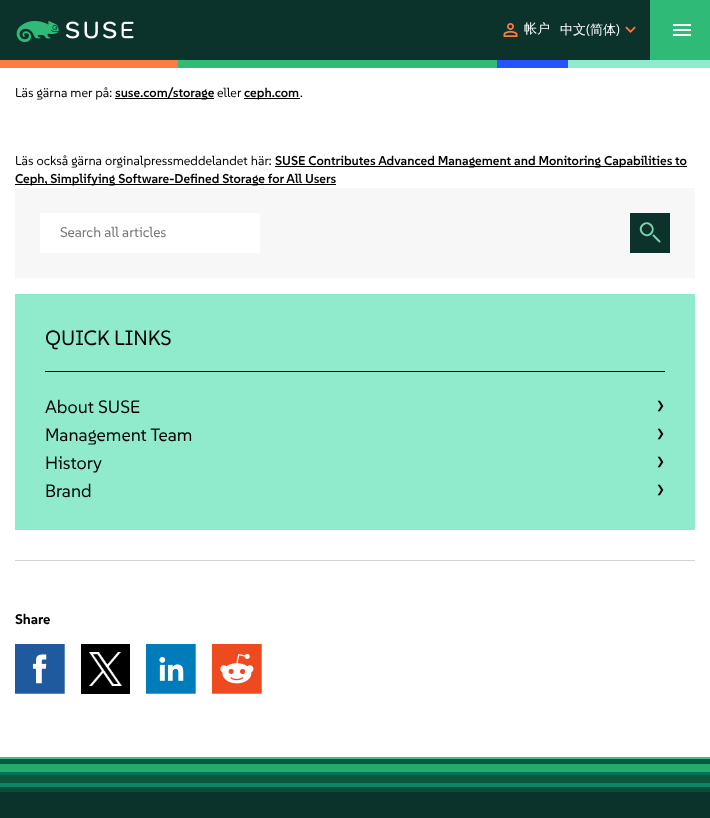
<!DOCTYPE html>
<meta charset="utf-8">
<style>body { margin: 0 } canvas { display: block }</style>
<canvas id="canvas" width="710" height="818"></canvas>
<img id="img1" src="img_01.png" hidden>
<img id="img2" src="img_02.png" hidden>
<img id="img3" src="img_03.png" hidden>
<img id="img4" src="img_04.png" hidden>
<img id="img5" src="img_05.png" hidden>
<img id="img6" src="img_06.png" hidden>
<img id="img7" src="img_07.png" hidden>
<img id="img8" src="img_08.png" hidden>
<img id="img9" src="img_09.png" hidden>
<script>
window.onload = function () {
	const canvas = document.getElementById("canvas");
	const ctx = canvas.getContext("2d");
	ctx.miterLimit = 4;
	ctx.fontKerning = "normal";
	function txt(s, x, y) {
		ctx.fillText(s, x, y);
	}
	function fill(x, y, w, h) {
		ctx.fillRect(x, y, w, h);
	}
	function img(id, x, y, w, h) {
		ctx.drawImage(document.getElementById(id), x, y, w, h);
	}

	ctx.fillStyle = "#FFFFFF";
	fill(0, 0, 710, 818);
	ctx.fillStyle = "#0C322C";
	fill(0, 0, 650, 60);
	img("img1", 16, 21, 118, 22);
	img("img2", 503, 23, 15, 14);
	img("img3", 625, 26, 11, 7);
	ctx.fillStyle = "#30BA78";
	fill(650, 0, 60, 60);
	img("img4", 673, 24, 18, 12);
	ctx.fillStyle = "#FE7C3F";
	fill(0, 60, 178, 8);
	ctx.fillStyle = "#30BA78";
	fill(178, 60, 319, 8);
	ctx.fillStyle = "#2453FF";
	fill(497, 60, 71, 8);
	ctx.fillStyle = "#90EBCD";
	fill(568, 60, 142, 8);
	ctx.fillStyle = "#000000";
	fill(115, 98, 99, 1);
	fill(244, 98, 56, 1);
	fill(275, 166, 412, 1);
	fill(15, 184, 321, 1);
	ctx.fillStyle = "#F7F7F7";
	fill(15, 188, 680, 90);
	ctx.fillStyle = "#FFFFFF";
	fill(40, 213, 220, 40);
	ctx.fillStyle = "#0C322C";
	fill(630, 213, 40, 40);
	ctx.beginPath();
	ctx.moveTo(642.5, 225);
	ctx.bezierCurveTo(648, 219.5, 656.5, 227.5, 651, 233.5);
	ctx.bezierCurveTo(645.5, 239, 637, 230.5, 642.5, 225);
	ctx.closePath();
	ctx.moveTo(653.5, 235.5);
	ctx.lineTo(659.5, 241.5);
	ctx.strokeStyle = "#7AD4AA";
	ctx.lineWidth = 2;
	ctx.lineCap = "round";
	ctx.stroke();
	ctx.fillStyle = "#90EBCD";
	fill(15, 294, 680, 236);
	ctx.fillStyle = "#000000";
	fill(45, 371, 620, 1);
	ctx.fillStyle = "#D4D4D4";
	fill(15, 560, 680, 1);
	img("img5", 15, 644, 50, 50);
	ctx.fillStyle = "#000000";
	fill(81, 644, 49, 50);
	img("img6", 89, 652, 33, 34);
	img("img7", 146, 644, 50, 50);
	img("img8", 212, 644, 50, 50);
	img("img9", 0, 757, 710, 35);
	ctx.fillStyle = "#0C322C";
	fill(0, 792, 710, 26);
	ctx.font = "500 13px WenQuanYi Zen Hei";
	ctx.fillStyle = "#FFFFFF";
	txt("帐户", 524, 33);
	txt("中文", 560, 34);
	ctx.font = "13px SUSE";
	txt("(", 586, 34);
	ctx.font = "500 13px WenQuanYi Zen Hei";
	txt("简体", 590, 34);
	ctx.font = "13px SUSE";
	txt(")", 616, 34);
	ctx.font = "12.8px SUSE";
	ctx.fillStyle = "#000000";
	txt("Läs gärna mer på:", 15, 97);
	ctx.font = "600 12.8px SUSE";
	txt("suse.com/storage", 115, 97);
	ctx.font = "12.8px SUSE";
	txt("eller", 217, 97);
	ctx.font = "600 12.8px SUSE";
	txt("ceph.com", 244, 97);
	ctx.font = "12.8px SUSE";
	txt(".", 300, 97);
	txt("Läs också gärna orginalpressmeddelandet här:", 15, 165);
	ctx.font = "600 12.8px SUSE";
	txt("SUSE Contributes Advanced Management and Monitoring Capabilities to", 275, 165);
	txt("Ceph, Simplifying Software-Defined Storage for All Users", 15, 183);
	ctx.font = "14px SUSE";
	ctx.fillStyle = "#757575";
	txt("Search all articles", 60, 237);
	ctx.font = "20.75px SUSE";
	ctx.fillStyle = "#000000";
	txt("QUICK LINKS", 45, 345);
	ctx.font = "18px SUSE";
	txt("About SUSE", 45, 413);
	ctx.font = "30px SUSE";
	txt("›", 656, 414);
	ctx.font = "18px SUSE";
	txt("Management Team", 45, 441);
	ctx.font = "30px SUSE";
	txt("›", 656, 442);
	ctx.font = "18px SUSE";
	txt("History", 45, 469);
	ctx.font = "30px SUSE";
	txt("›", 656, 470);
	ctx.font = "18px SUSE";
	txt("Brand", 45, 497);
	ctx.font = "30px SUSE";
	txt("›", 656, 498);
	ctx.font = "bold 14px SUSE";
	txt("Share", 15, 624);
};
</script>
